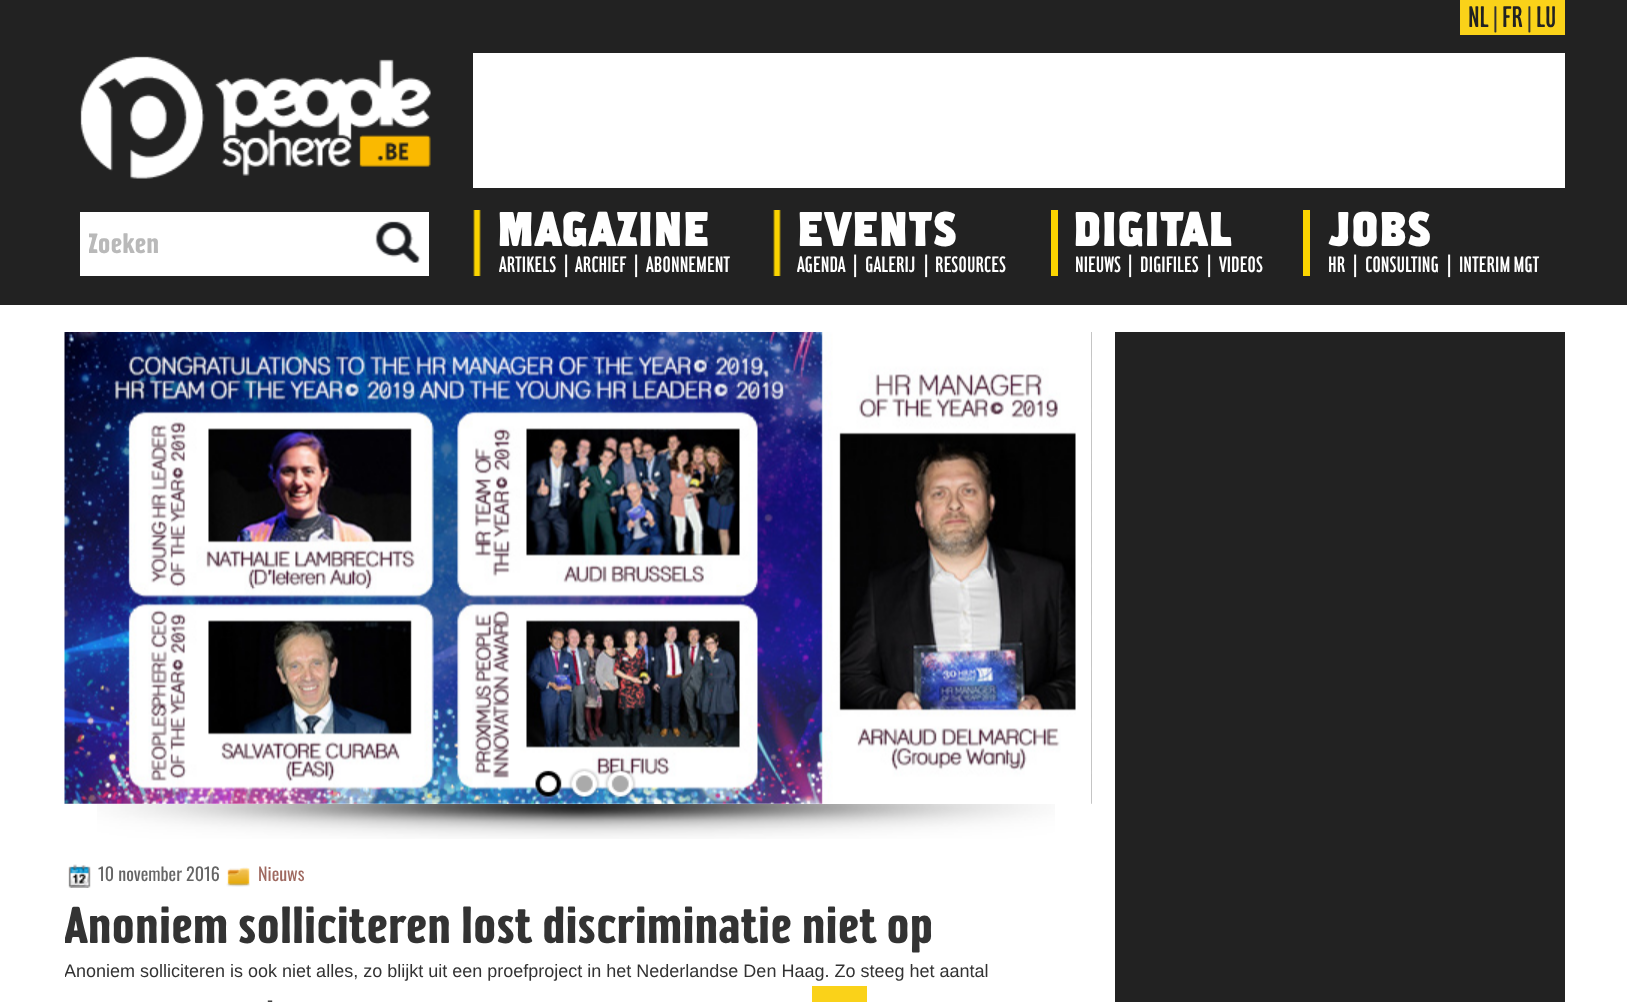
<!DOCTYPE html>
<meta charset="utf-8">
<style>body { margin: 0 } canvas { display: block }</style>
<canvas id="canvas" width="1627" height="1002"></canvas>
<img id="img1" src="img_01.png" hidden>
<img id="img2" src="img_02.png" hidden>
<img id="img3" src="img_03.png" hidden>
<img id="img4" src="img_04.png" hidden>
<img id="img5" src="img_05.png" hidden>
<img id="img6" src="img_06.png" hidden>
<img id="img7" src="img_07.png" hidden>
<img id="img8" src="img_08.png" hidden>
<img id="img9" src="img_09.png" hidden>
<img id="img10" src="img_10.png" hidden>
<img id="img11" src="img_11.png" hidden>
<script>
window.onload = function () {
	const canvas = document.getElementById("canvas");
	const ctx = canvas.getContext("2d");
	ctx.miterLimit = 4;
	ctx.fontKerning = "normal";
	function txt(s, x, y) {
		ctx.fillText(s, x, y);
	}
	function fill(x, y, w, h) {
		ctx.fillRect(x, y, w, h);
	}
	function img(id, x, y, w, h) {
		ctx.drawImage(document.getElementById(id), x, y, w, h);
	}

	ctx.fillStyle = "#FFFFFF";
	fill(0, 0, 1627, 1002);
	ctx.fillStyle = "#222222";
	fill(0, 0, 1627, 305);
	ctx.fillStyle = "#FAD219";
	fill(1460, 0, 105, 35);
	img("img1", 80, 56, 351, 123);
	ctx.fillStyle = "#FFFFFF";
	fill(473, 53, 1092, 135);
	fill(80, 212, 349, 64);
	img("img2", 375, 221, 46, 42);
	img("img3", 473, 210, 8, 66);
	img("img3", 773, 210, 8, 66);
	ctx.fillStyle = "#FBD400";
	fill(1051, 210, 7, 66);
	fill(1303, 210, 7, 66);
	img("img4", 64, 332, 1012, 472);
	img("img5", 1091, 332, 1, 472);
	img("img6", 534, 770, 29, 30);
	img("img7", 568, 768, 32, 32);
	img("img8", 604, 768, 32, 32);
	img("img9", 97, 804, 958, 35);
	img("img10", 68, 864, 23, 24);
	img("img11", 226, 867, 24, 20);
	ctx.fillStyle = "#FAD219";
	fill(812, 986, 55, 16);
	ctx.fillStyle = "#222222";
	fill(1115, 332, 450, 670);
	ctx.font = "300 32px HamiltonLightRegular";
	txt("NL", 1468, 27);
	ctx.fillStyle = "#333333";
	txt("|", 1493, 27);
	ctx.fillStyle = "#222222";
	txt("FR", 1502, 27);
	ctx.fillStyle = "#333333";
	txt("|", 1527, 27);
	ctx.fillStyle = "#222222";
	txt("LU", 1536, 27);
	ctx.save();
	ctx.beginPath();
	ctx.rect(89, 228, 262, 32);
	ctx.clip();
	ctx.font = "500 30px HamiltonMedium";
	ctx.fillStyle = "#B9B9B9";
	txt("Zoeken", 88, 253);
	ctx.restore();
	ctx.font = "bold 52.5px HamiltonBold";
	ctx.fillStyle = "#FFFFFF";
	txt("MAGAZINE", 497, 246);
	txt("EVENTS", 797, 246);
	txt("DIGITAL", 1073, 246);
	txt("JOBS", 1328, 246);
	ctx.font = "300 24px HamiltonLightRegular";
	txt("ARTIKELS", 499, 272);
	ctx.font = "24px Liberation Sans";
	txt("|", 563, 272);
	ctx.font = "300 24px HamiltonLightRegular";
	txt("ARCHIEF", 575, 272);
	ctx.font = "24px Liberation Sans";
	txt("|", 633, 272);
	ctx.font = "300 24px HamiltonLightRegular";
	txt("ABONNEMENT", 646, 272);
	txt("AGENDA", 797, 272);
	ctx.font = "24px Liberation Sans";
	txt("|", 852, 272);
	ctx.font = "300 24px HamiltonLightRegular";
	txt("GALERIJ", 865, 272);
	ctx.font = "24px Liberation Sans";
	txt("|", 923, 272);
	ctx.font = "300 24px HamiltonLightRegular";
	txt("RESOURCES", 935, 272);
	txt("NIEUWS", 1075, 272);
	ctx.font = "24px Liberation Sans";
	txt("|", 1127, 272);
	ctx.font = "300 24px HamiltonLightRegular";
	txt("DIGIFILES", 1140, 272);
	ctx.font = "24px Liberation Sans";
	txt("|", 1206, 272);
	ctx.font = "300 24px HamiltonLightRegular";
	txt("VIDEOS", 1219, 272);
	txt("HR", 1328, 272);
	ctx.font = "24px Liberation Sans";
	txt("|", 1352, 272);
	ctx.font = "300 24px HamiltonLightRegular";
	txt("CONSULTING", 1365, 272);
	ctx.font = "24px Liberation Sans";
	txt("|", 1446, 272);
	ctx.font = "300 24px HamiltonLightRegular";
	txt("INTERIM MGT", 1459, 272);
	ctx.font = "18px Oswald";
	ctx.fillStyle = "#666666";
	txt("10 november 2016", 98, 881);
	ctx.fillStyle = "#9F6960";
	txt("Nieuws", 258, 881);
	ctx.save();
	ctx.beginPath();
	ctx.rect(65, 857, 990, 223);
	ctx.clip();
	ctx.font = "500 55.5px HamiltonMedium";
	ctx.fillStyle = "#333333";
	txt("Anoniem solliciteren lost discriminatie niet op", 64, 943);
	ctx.font = "18px Liberation Sans";
	txt("Anoniem solliciteren is ook niet alles, zo blijkt uit een proefproject in het Nederlandse Den Haag. Zo steeg het aantal", 64, 977);
	ctx.restore();
	ctx.font = "18px Liberation Sans";
	ctx.fillStyle = "#333333";
	txt("-", 267, 1006);
};
</script>
